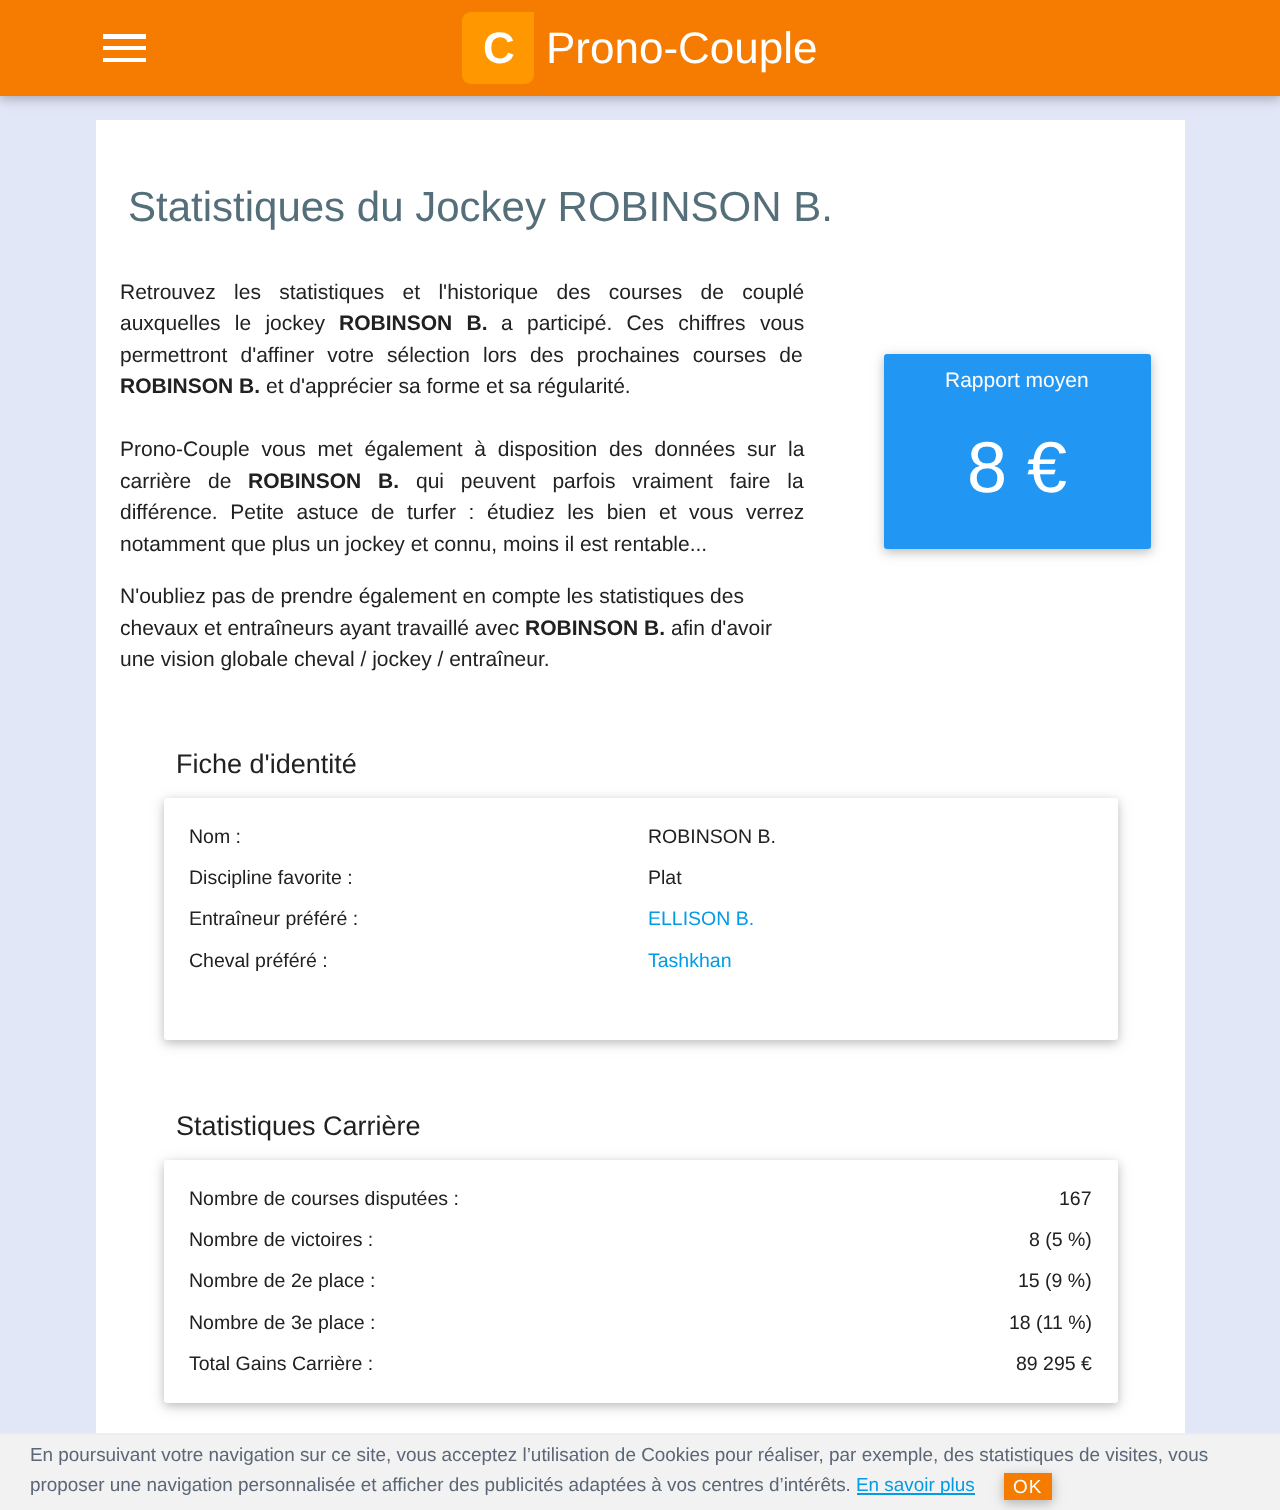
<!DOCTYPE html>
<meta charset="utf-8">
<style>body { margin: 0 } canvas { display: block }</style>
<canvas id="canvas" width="1280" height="1510"></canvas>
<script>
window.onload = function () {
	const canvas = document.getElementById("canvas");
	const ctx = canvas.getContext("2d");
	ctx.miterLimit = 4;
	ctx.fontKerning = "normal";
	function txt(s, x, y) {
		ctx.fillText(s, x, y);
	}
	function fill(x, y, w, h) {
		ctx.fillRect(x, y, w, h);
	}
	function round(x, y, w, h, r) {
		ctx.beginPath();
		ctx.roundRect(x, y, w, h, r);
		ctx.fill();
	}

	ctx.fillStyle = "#E2E7F7";
	fill(0, 0, 1280, 1510);
	ctx.fillStyle = "#FFFFFF";
	fill(96, 120, 1089, 1313);
	ctx.fillStyle = "rgba(0, 0, 0, 0.12)";
	ctx.filter = "blur(7.5px)";
	ctx.beginPath();
	ctx.rect(0, 3, 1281, 96);
	ctx.fill();
	ctx.filter = "none";
	ctx.fillStyle = "rgba(0, 0, 0, 0.16)";
	ctx.filter = "blur(4px)";
	ctx.beginPath();
	ctx.rect(0, 3, 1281, 96);
	ctx.fill();
	ctx.filter = "none";
	ctx.fillStyle = "#F57C00";
	fill(0, 0, 1280, 96);
	ctx.fillStyle = "#FFFFFF";
	ctx.beginPath();
	ctx.moveTo(103, 34);
	ctx.lineTo(146, 34);
	ctx.lineTo(146, 39);
	ctx.lineTo(103, 39);
	ctx.closePath();
	ctx.moveTo(103, 50);
	ctx.lineTo(103, 46);
	ctx.lineTo(146, 46);
	ctx.lineTo(146, 50);
	ctx.closePath();
	ctx.moveTo(103, 62);
	ctx.lineTo(103, 58);
	ctx.lineTo(146, 58);
	ctx.lineTo(146, 62);
	ctx.closePath();
	ctx.fill();
	ctx.fillStyle = "#FF9800";
	ctx.beginPath();
	ctx.roundRect(462, 12, 72, 72, [9, 0, 9, 9]);
	ctx.fill();
	ctx.fillStyle = "rgba(0, 0, 0, 0.12)";
	ctx.filter = "blur(7.5px)";
	ctx.beginPath();
	ctx.roundRect(884, 357, 267, 195, 3);
	ctx.fill();
	ctx.filter = "none";
	ctx.fillStyle = "rgba(0, 0, 0, 0.16)";
	ctx.filter = "blur(4px)";
	ctx.beginPath();
	ctx.roundRect(884, 357, 267, 195, 3);
	ctx.fill();
	ctx.filter = "none";
	ctx.fillStyle = "#2196F3";
	round(884, 354, 267, 195, 3);
	ctx.fillStyle = "rgba(0, 0, 0, 0.12)";
	ctx.filter = "blur(7.5px)";
	ctx.beginPath();
	ctx.roundRect(164, 801, 954, 242, 3);
	ctx.fill();
	ctx.filter = "none";
	ctx.fillStyle = "rgba(0, 0, 0, 0.16)";
	ctx.filter = "blur(4px)";
	ctx.beginPath();
	ctx.roundRect(164, 801, 954, 242, 3);
	ctx.fill();
	ctx.filter = "none";
	ctx.fillStyle = "#FFFFFF";
	round(164, 798, 954, 242, 3);
	ctx.fillStyle = "rgba(0, 0, 0, 0.12)";
	ctx.filter = "blur(7.5px)";
	ctx.beginPath();
	ctx.roundRect(164, 1163, 954, 243, 3);
	ctx.fill();
	ctx.filter = "none";
	ctx.fillStyle = "rgba(0, 0, 0, 0.16)";
	ctx.filter = "blur(4px)";
	ctx.beginPath();
	ctx.roundRect(164, 1163, 954, 243, 3);
	ctx.fill();
	ctx.filter = "none";
	ctx.fillStyle = "#FFFFFF";
	round(164, 1160, 954, 243, 3);
	ctx.fillStyle = "#F2F2F2";
	fill(0, 1435, 1280, 75);
	ctx.fillStyle = "#EDEDED";
	fill(0, 1433, 1280, 2);
	ctx.fillStyle = "#039BE5";
	fill(857, 1493, 118, 2);
	ctx.fillStyle = "rgba(0, 0, 0, 0.12)";
	ctx.filter = "blur(7.5px)";
	ctx.beginPath();
	ctx.rect(1004, 1476, 48, 27);
	ctx.fill();
	ctx.filter = "none";
	ctx.fillStyle = "rgba(0, 0, 0, 0.16)";
	ctx.filter = "blur(4px)";
	ctx.beginPath();
	ctx.rect(1004, 1476, 48, 27);
	ctx.fill();
	ctx.filter = "none";
	ctx.fillStyle = "#F57C00";
	fill(1004, 1473, 48, 27);
	ctx.font = "bold 44px Liberation Sans";
	ctx.fillStyle = "#FFFFFF";
	txt("C", 483, 63);
	ctx.font = "44px Liberation Sans";
	txt("Prono-Couple", 546, 63);
	ctx.font = "42px Liberation Sans";
	ctx.fillStyle = "#546E7A";
	txt("Statistiques du Jockey ROBINSON B.", 128, 221);
	ctx.wordSpacing = "12.5px";
	ctx.font = "21px Liberation Sans";
	ctx.fillStyle = "#212121";
	txt("Retrouvez les statistiques et l'historique des courses de couplé", 120, 299);
	ctx.wordSpacing = "8.5px";
	txt("auxquelles le jockey", 120, 330);
	ctx.font = "bold 21px Liberation Sans";
	txt("ROBINSON B.", 339, 330);
	ctx.font = "21px Liberation Sans";
	txt("a participé. Ces chiffres vous", 501, 330);
	ctx.wordSpacing = "7.25px";
	txt("permettront d'affiner votre sélection lors des prochaines courses de", 120, 362);
	ctx.wordSpacing = "0px";
	ctx.font = "bold 21px Liberation Sans";
	txt("ROBINSON B.", 120, 393);
	ctx.font = "21px Liberation Sans";
	txt("et d'apprécier sa forme et sa régularité.", 266, 393);
	ctx.wordSpacing = "6px";
	txt("Prono-Couple vous met également à disposition des données sur la", 120, 456);
	ctx.wordSpacing = "11px";
	txt("carrière de", 120, 488);
	ctx.font = "bold 21px Liberation Sans";
	txt("ROBINSON B.", 248, 488);
	ctx.font = "21px Liberation Sans";
	txt("qui peuvent parfois vraiment faire la", 416, 488);
	ctx.wordSpacing = "6.75px";
	txt("différence. Petite astuce de turfer : étudiez les bien et vous verrez", 120, 519);
	ctx.wordSpacing = "0px";
	txt("notamment que plus un jockey et connu, moins il est rentable...", 120, 551);
	txt("N'oubliez pas de prendre également en compte les statistiques des", 120, 603);
	txt("chevaux et entraîneurs ayant travaillé avec", 120, 635);
	ctx.font = "bold 21px Liberation Sans";
	txt("ROBINSON B.", 525, 635);
	ctx.font = "21px Liberation Sans";
	txt("afin d'avoir", 671, 635);
	txt("une vision globale cheval / jockey / entraîneur.", 120, 666);
	ctx.fillStyle = "#FFFFFF";
	txt("Rapport moyen", 945, 387);
	ctx.font = "72px Liberation Sans";
	txt("8 €", 967, 492);
	ctx.font = "27px Liberation Sans";
	ctx.fillStyle = "#212121";
	txt("Fiche d'identité", 176, 773);
	ctx.font = "19.5px Liberation Sans";
	txt("Nom :", 189, 843);
	txt("ROBINSON B.", 648, 843);
	txt("Discipline favorite :", 189, 884);
	txt("Plat", 648, 884);
	txt("Entraîneur préféré :", 189, 925);
	ctx.fillStyle = "#039BE5";
	txt("ELLISON B.", 648, 925);
	ctx.fillStyle = "#212121";
	txt("Cheval préféré :", 189, 967);
	ctx.fillStyle = "#039BE5";
	txt("Tashkhan", 648, 967);
	ctx.font = "27px Liberation Sans";
	ctx.fillStyle = "#212121";
	txt("Statistiques Carrière", 176, 1135);
	ctx.font = "19.5px Liberation Sans";
	txt("Nombre de courses disputées :", 189, 1205);
	txt("167", 1059, 1205);
	txt("Nombre de victoires :", 189, 1246);
	txt("8 (5 %)", 1029, 1246);
	txt("Nombre de 2e place :", 189, 1287);
	txt("15 (9 %)", 1018, 1287);
	txt("Nombre de 3e place :", 189, 1329);
	txt("18 (11 %)", 1009, 1329);
	txt("Total Gains Carrière :", 189, 1370);
	txt("89 295 €", 1016, 1370);
	ctx.font = "18.9px Liberation Sans";
	ctx.fillStyle = "#5B6776";
	txt("En poursuivant votre navigation sur ce site, vous acceptez l’utilisation de Cookies pour réaliser, par exemple, des statistiques de visites, vous", 30, 1461);
	txt("proposer une navigation personnalisée et afficher des publicités adaptées à vos centres d’intérêts.", 30, 1491);
	ctx.fillStyle = "#039BE5";
	txt("En savoir plus", 856, 1491);
	ctx.letterSpacing = "1px";
	ctx.fillStyle = "#FFFFFF";
	txt("OK", 1013, 1493);
};
</script>
